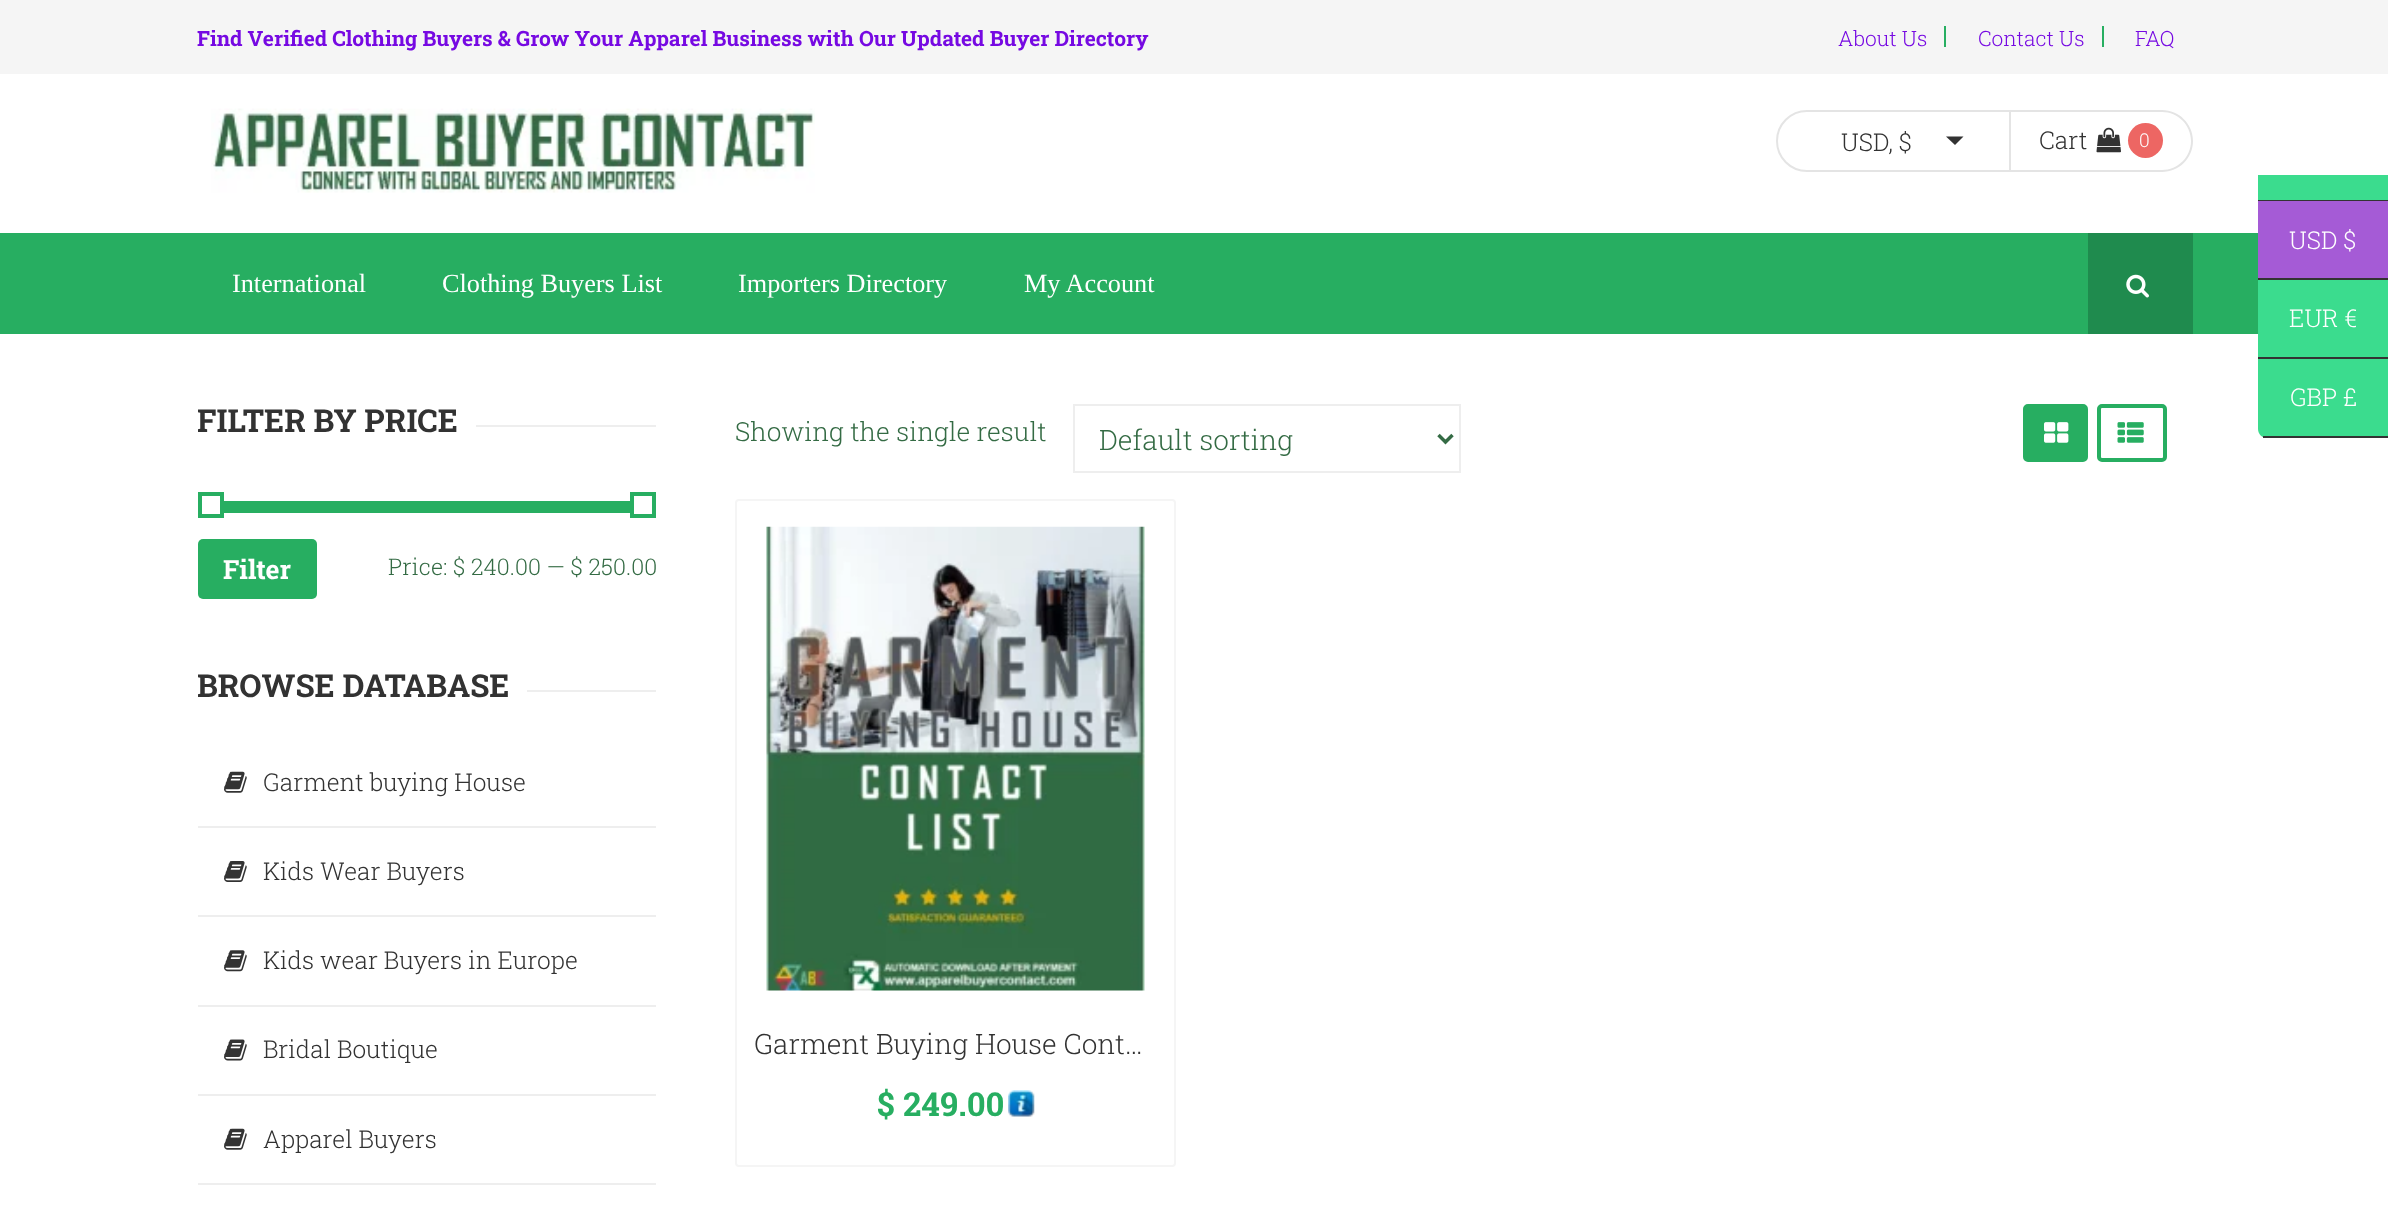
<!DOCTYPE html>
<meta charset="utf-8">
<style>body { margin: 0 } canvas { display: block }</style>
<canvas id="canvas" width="2388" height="1213"></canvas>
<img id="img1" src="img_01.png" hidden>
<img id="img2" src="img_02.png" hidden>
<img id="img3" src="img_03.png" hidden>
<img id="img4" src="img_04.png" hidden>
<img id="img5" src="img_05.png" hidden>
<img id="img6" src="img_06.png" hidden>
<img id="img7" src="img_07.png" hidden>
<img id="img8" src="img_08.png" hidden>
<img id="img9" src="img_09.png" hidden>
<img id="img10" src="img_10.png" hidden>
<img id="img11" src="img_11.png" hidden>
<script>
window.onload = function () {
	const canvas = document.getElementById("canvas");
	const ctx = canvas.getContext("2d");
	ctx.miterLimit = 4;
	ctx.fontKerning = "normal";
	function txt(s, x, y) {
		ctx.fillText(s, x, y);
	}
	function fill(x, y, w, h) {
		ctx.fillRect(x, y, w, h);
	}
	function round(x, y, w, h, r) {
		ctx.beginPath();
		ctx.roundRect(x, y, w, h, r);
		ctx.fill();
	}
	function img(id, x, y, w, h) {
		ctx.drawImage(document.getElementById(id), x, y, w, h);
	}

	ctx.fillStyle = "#FFFFFF";
	fill(0, 0, 2388, 1213);
	ctx.fillStyle = "#F5F5F5";
	fill(0, 0, 2388, 74);
	ctx.fillStyle = "#27AE61";
	fill(1944, 26, 2, 21);
	fill(2102, 26, 2, 21);
	img("img1", 211, 108, 604, 85);
	ctx.beginPath();
	ctx.roundRect(1777, 111, 233, 60, [30, 0, 0, 30]);
	ctx.strokeStyle = "#E4E4E4";
	ctx.lineWidth = 2;
	ctx.stroke();
	ctx.fillStyle = "#323232";
	ctx.beginPath();
	ctx.moveTo(1946, 136.5);
	ctx.lineTo(1963.5, 136.5);
	ctx.lineTo(1955, 145);
	ctx.closePath();
	ctx.fill();
	ctx.fillStyle = "#E4E4E4";
	ctx.beginPath();
	ctx.moveTo(2011, 110);
	ctx.lineTo(2162, 110);
	ctx.bezierCurveTo(2179, 110, 2193, 124, 2193, 141);
	ctx.bezierCurveTo(2193, 158, 2179, 172, 2162, 172);
	ctx.lineTo(2011, 172);
	ctx.closePath();
	ctx.moveTo(2011, 112);
	ctx.lineTo(2162, 112);
	ctx.bezierCurveTo(2178, 112, 2191, 125, 2191, 141);
	ctx.bezierCurveTo(2191, 157, 2178, 170, 2162, 170);
	ctx.lineTo(2011, 170);
	ctx.closePath();
	ctx.fill("evenodd");
	img("img2", 2096, 127, 25, 26);
	ctx.fillStyle = "#ED6663";
	ctx.beginPath();
	ctx.arc(2145.5, 140.5, 17.5, 0, Math.PI * 2);
	ctx.fill();
	ctx.fillStyle = "#27AE61";
	fill(0, 233, 2258, 101);
	ctx.fillStyle = "#1F8B4E";
	fill(2088, 233, 105, 101);
	img("img3", 2126, 274, 23, 24);
	ctx.fillStyle = "#EEEEEE";
	fill(476, 425, 180, 2);
	ctx.strokeStyle = "#27AE61";
	ctx.lineWidth = 4;
	ctx.strokeRect(200, 494, 22, 22);
	ctx.fillStyle = "#27AE61";
	fill(224, 501, 406, 12);
	ctx.strokeRect(632, 494, 22, 22);
	round(198, 539, 119, 60, 5);
	ctx.fillStyle = "#EEEEEE";
	fill(527, 690, 129, 2);
	fill(198, 826, 458, 2);
	img("img4", 224, 771, 23, 22);
	fill(198, 915, 458, 2);
	img("img5", 224, 861, 23, 21);
	fill(198, 1005, 458, 2);
	img("img6", 224, 950, 23, 22);
	fill(198, 1094, 458, 2);
	img("img7", 224, 1039, 23, 22);
	fill(198, 1183, 458, 2);
	img("img4", 224, 1128, 23, 22);
	ctx.strokeStyle = "#EEEEEE";
	ctx.lineWidth = 2;
	ctx.strokeRect(1074, 405, 386, 67);
	ctx.beginPath();
	ctx.moveTo(1438.5, 435);
	ctx.lineTo(1445.5, 442);
	ctx.lineTo(1452.5, 435);
	ctx.strokeStyle = "#346B44";
	ctx.lineWidth = 3.5;
	ctx.stroke();
	ctx.fillStyle = "#27AE61";
	ctx.beginPath();
	ctx.roundRect(2025, 406, 61, 54, 3);
	ctx.fill();
	ctx.strokeStyle = "#27AE61";
	ctx.lineWidth = 4;
	ctx.stroke();
	img("img8", 2044, 422, 25, 21);
	ctx.beginPath();
	ctx.roundRect(2099, 406, 66, 54, 3);
	ctx.stroke();
	img("img9", 2117, 422, 27, 21);
	ctx.beginPath();
	ctx.roundRect(736, 500, 439, 666, 3);
	ctx.strokeStyle = "#F5F5F5";
	ctx.lineWidth = 2;
	ctx.stroke();
	img("img10", 766, 526, 379, 465);
	img("img11", 1008, 1090, 27, 27);
	ctx.fillStyle = "#3BDC8E";
	fill(2258, 175, 130, 25);
	ctx.fillStyle = "#333333";
	fill(2258, 200, 130, 1);
	ctx.fillStyle = "#A55BD6";
	fill(2258, 201, 130, 77);
	ctx.fillStyle = "#333333";
	fill(2258, 278, 130, 2);
	ctx.fillStyle = "#3BDC8E";
	fill(2258, 280, 130, 77);
	ctx.fillStyle = "#333333";
	fill(2258, 357, 130, 2);
	ctx.fillStyle = "#3BDC8E";
	ctx.beginPath();
	ctx.moveTo(2258, 359);
	ctx.lineTo(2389, 359);
	ctx.lineTo(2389, 438);
	ctx.lineTo(2267, 438);
	ctx.bezierCurveTo(2262, 438, 2258, 434, 2258, 429);
	ctx.closePath();
	ctx.fill();
	ctx.fillStyle = "#333333";
	fill(2263, 436, 125, 2);
	ctx.font = "bold 21px Roboto Slab";
	ctx.fillStyle = "#7609E2";
	txt("Find Verified Clothing Buyers & Grow Your Apparel Business with Our Updated Buyer Directory", 197, 46);
	ctx.font = "300 21px Roboto Slab";
	txt("About Us", 1838, 46);
	txt("Contact Us", 1978, 46);
	txt("FAQ", 2135, 46);
	ctx.font = "300 24.5px Roboto Slab";
	ctx.fillStyle = "#323232";
	txt("USD, $", 1841, 151);
	txt("Cart", 2039, 149);
	ctx.font = "300 19px Roboto Slab";
	ctx.fillStyle = "#FFFFFF";
	txt("0", 2139, 147);
	ctx.font = "26.25px Liberation Serif";
	txt("International", 232, 292);
	txt("Clothing Buyers List", 442, 292);
	txt("Importers Directory", 738, 292);
	txt("My Account", 1024, 292);
	ctx.save();
	ctx.beginPath();
	ctx.rect(198, 404, 458, 35);
	ctx.clip();
	ctx.font = "bold 31.5px Roboto Slab";
	ctx.fillStyle = "#323232";
	txt("FILTER BY PRICE", 197, 432);
	ctx.restore();
	ctx.font = "bold 26.5px Roboto Slab";
	txt("Filter", 223, 579);
	ctx.font = "300 23px Roboto Slab";
	ctx.fillStyle = "#346B44";
	txt("Price: $ 240.00 — $ 250.00", 388, 575);
	ctx.save();
	ctx.beginPath();
	ctx.rect(198, 669, 458, 35);
	ctx.clip();
	ctx.font = "bold 31.5px Roboto Slab";
	ctx.fillStyle = "#323232";
	txt("BROWSE DATABASE", 197, 697);
	ctx.restore();
	ctx.font = "300 24.5px Roboto Slab";
	ctx.fillStyle = "#323232";
	txt("Garment buying House", 263, 791);
	txt("Kids Wear Buyers", 263, 880);
	txt("Kids wear Buyers in Europe", 263, 969);
	txt("Bridal Boutique", 263, 1058);
	txt("Apparel Buyers", 263, 1148);
	ctx.font = "300 26.25px Roboto Slab";
	ctx.fillStyle = "#346B44";
	txt("Showing the single result", 735, 441);
	ctx.font = "300 28px Roboto Slab";
	txt("Default sorting", 1099, 450);
	ctx.fillStyle = "#323232";
	txt("Garment Buying House Cont…", 754, 1054);
	ctx.font = "bold 33px Roboto Slab";
	ctx.fillStyle = "#27AE61";
	txt("$ 249.00", 877, 1116);
	ctx.font = "300 24.5px Roboto Slab";
	ctx.fillStyle = "#FFFFFF";
	txt("USD $", 2289, 249);
	txt("EUR €", 2289, 327);
	txt("GBP £", 2290, 406);
};
</script>
